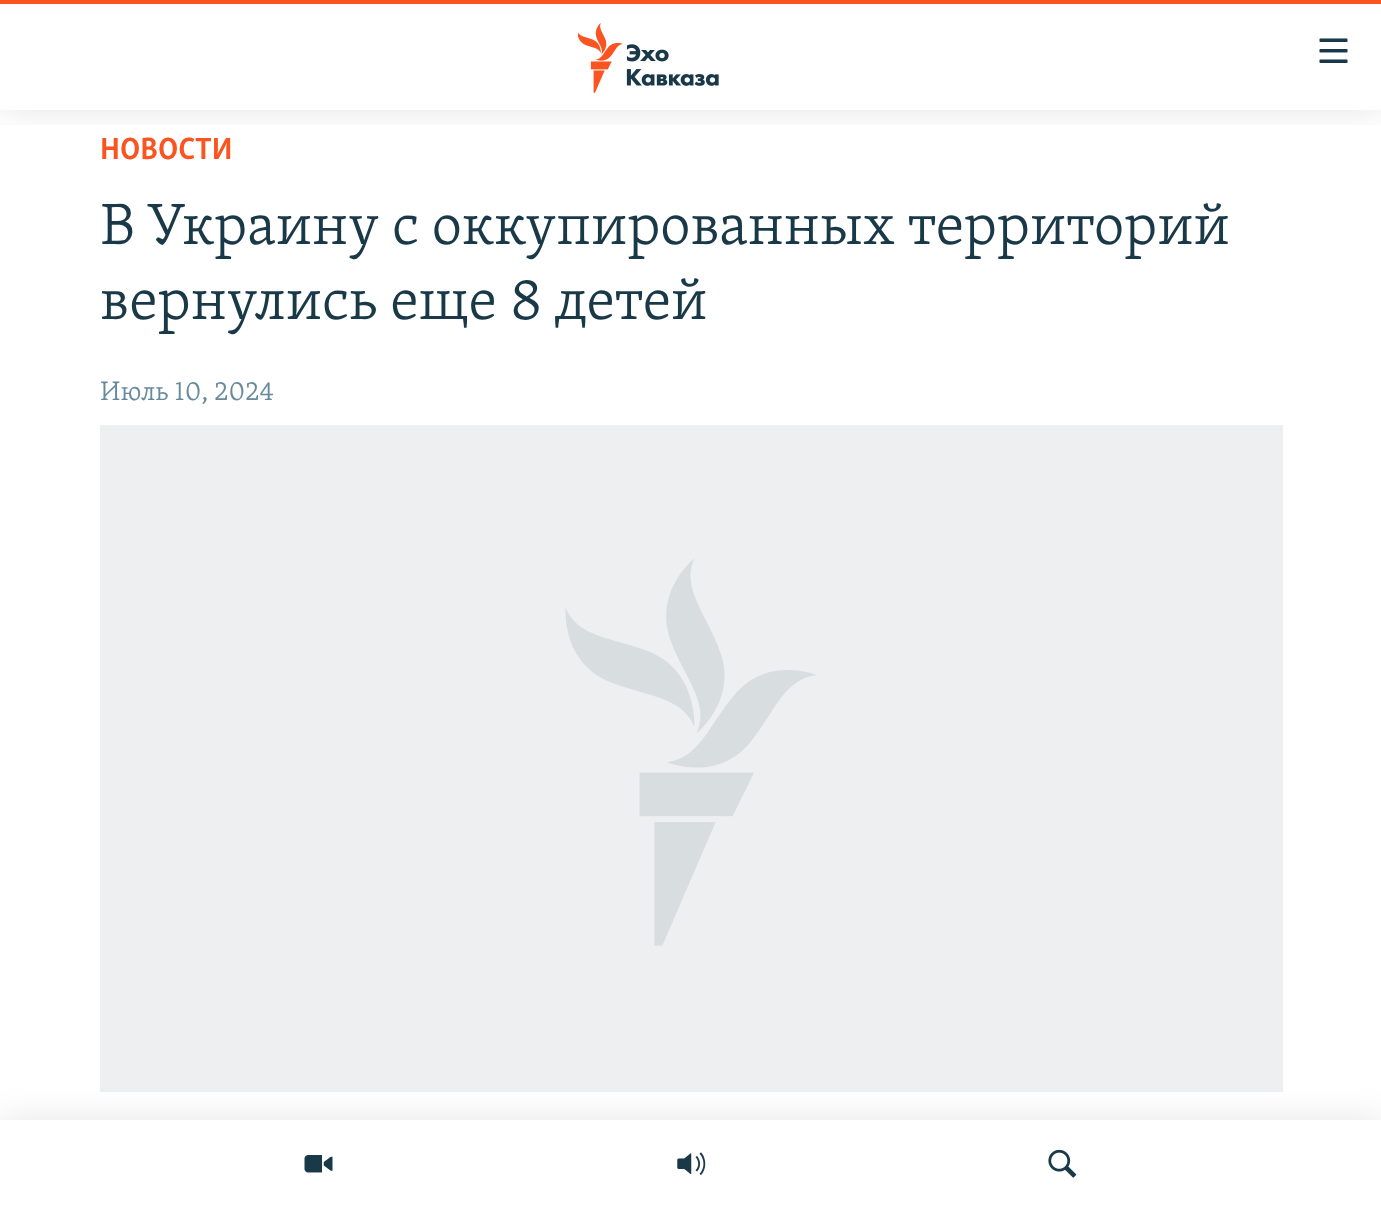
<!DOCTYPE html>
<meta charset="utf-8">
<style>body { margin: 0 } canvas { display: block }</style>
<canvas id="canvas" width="1381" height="1206"></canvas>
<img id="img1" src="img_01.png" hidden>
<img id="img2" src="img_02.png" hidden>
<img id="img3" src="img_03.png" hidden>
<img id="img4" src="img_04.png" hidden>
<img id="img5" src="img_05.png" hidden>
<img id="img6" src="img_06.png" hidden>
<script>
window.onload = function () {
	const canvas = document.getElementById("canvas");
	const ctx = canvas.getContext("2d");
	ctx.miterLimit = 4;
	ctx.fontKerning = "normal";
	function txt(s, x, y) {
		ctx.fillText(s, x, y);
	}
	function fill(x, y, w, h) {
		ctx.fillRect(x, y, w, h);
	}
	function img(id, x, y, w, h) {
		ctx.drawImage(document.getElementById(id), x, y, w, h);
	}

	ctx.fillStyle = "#FFFFFF";
	fill(0, 0, 1381, 1206);
	ctx.save();
	ctx.beginPath();
	ctx.rect(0, 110, 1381, 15);
	ctx.clip();
	ctx.fillStyle = "rgba(0, 0, 0, 0.1)";
	ctx.filter = "blur(17.5px)";
	ctx.beginPath();
	ctx.rect(0, 0, 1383, 110);
	ctx.fill();
	ctx.filter = "none";
	ctx.restore();
	ctx.fillStyle = "#FA5420";
	fill(0, 0, 1381, 4);
	img("img1", 578, 23, 141, 70);
	img("img2", 1319, 38, 29, 25);
	ctx.fillStyle = "#EDEFF0";
	fill(100, 425, 1183, 667);
	ctx.fillStyle = "rgba(0, 0, 0, 0.1)";
	ctx.filter = "blur(17.5px)";
	ctx.beginPath();
	ctx.rect(0, 1120, 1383, 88);
	ctx.fill();
	ctx.filter = "none";
	ctx.fillStyle = "#FFFFFF";
	fill(0, 1120, 1381, 86);
	img("img3", 304, 1155, 29, 18);
	img("img4", 677, 1152, 29, 23);
	img("img5", 1048, 1149, 29, 29);
	img("img6", 565, 559, 251, 387);
	ctx.font = "bold 31.5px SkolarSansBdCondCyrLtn";
	ctx.fillStyle = "#FA5420";
	txt("НОВОСТИ", 100, 159);
	ctx.font = "300 59.8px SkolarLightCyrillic";
	ctx.fillStyle = "#1A3948";
	txt("В Украину с оккупированных территорий", 100, 244);
	txt("вернулись еще 8 детей", 100, 319);
	ctx.font = "300 27.5px SkolarLightCyrillic";
	ctx.fillStyle = "#678A9B";
	txt("Июль 10, 2024", 100, 400);
};
</script>
